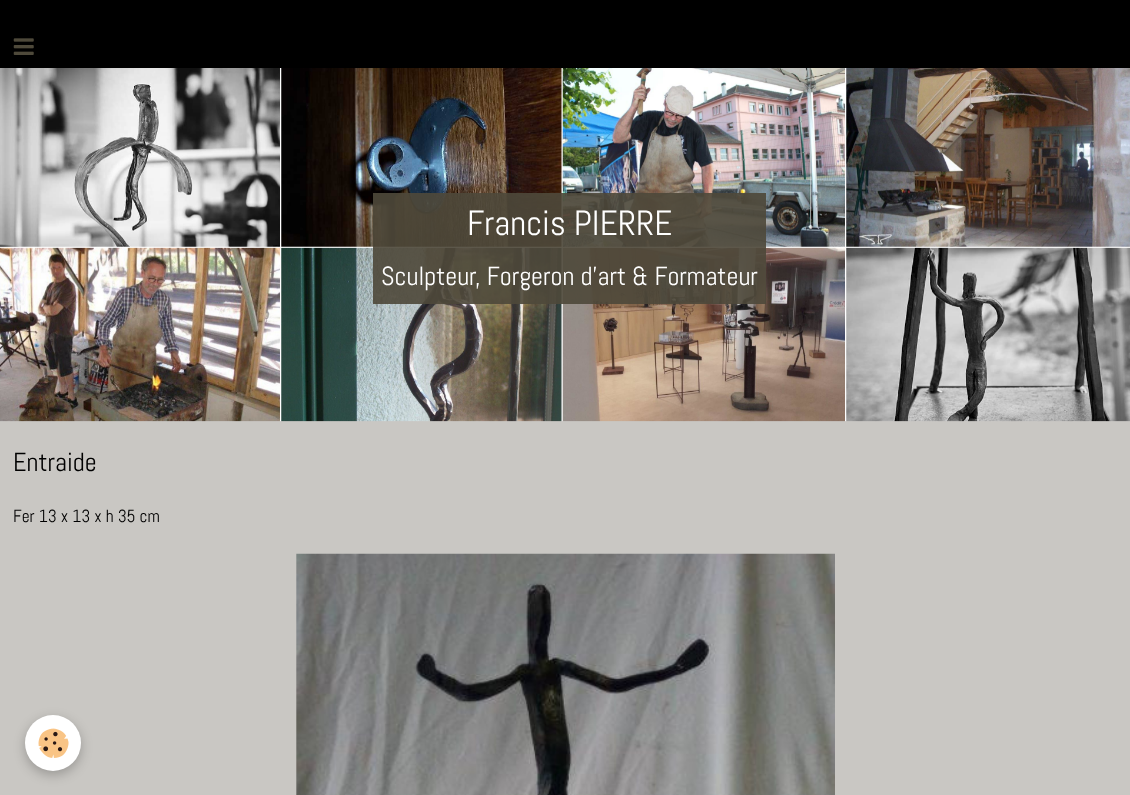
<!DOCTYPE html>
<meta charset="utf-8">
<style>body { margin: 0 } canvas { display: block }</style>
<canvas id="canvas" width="1130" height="795"></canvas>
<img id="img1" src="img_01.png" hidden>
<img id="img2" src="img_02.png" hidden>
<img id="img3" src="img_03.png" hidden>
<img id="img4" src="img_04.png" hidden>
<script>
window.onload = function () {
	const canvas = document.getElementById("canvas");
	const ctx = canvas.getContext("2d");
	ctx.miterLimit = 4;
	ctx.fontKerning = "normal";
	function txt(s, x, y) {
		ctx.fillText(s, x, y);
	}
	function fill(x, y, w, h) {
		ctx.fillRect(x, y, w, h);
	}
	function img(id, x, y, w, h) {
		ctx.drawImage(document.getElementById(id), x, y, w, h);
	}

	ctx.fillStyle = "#C9C7C3";
	fill(0, 0, 1130, 795);
	ctx.fillStyle = "#000000";
	fill(0, 0, 1130, 68);
	img("img1", 13, 38, 21, 17);
	img("img2", 0, 68, 1130, 354);
	ctx.fillStyle = "rgba(78, 73, 58, 0.91)";
	fill(373, 193, 393, 111);
	img("img3", 296, 553, 539, 242);
	ctx.fillStyle = "rgba(0, 0, 0, 0.24)";
	ctx.filter = "blur(6px)";
	ctx.beginPath();
	ctx.roundRect(25, 719, 56, 56, 28);
	ctx.fill();
	ctx.filter = "none";
	ctx.fillStyle = "#FFFFFF";
	ctx.beginPath();
	ctx.arc(53, 743, 28, 0, Math.PI * 2);
	ctx.fill();
	img("img4", 38, 728, 31, 30);
	ctx.font = "35px Abel";
	txt("Francis PIERRE", 467, 235);
	ctx.font = "26.25px Abel";
	txt("Sculpteur, Forgeron d'art & Formateur", 381, 285);
	ctx.fillStyle = "#000000";
	txt("Entraide", 13, 471);
	ctx.font = "17.5px Abel";
	txt("Fer 13 x 13 x h 35 cm", 13, 522);
};
</script>
